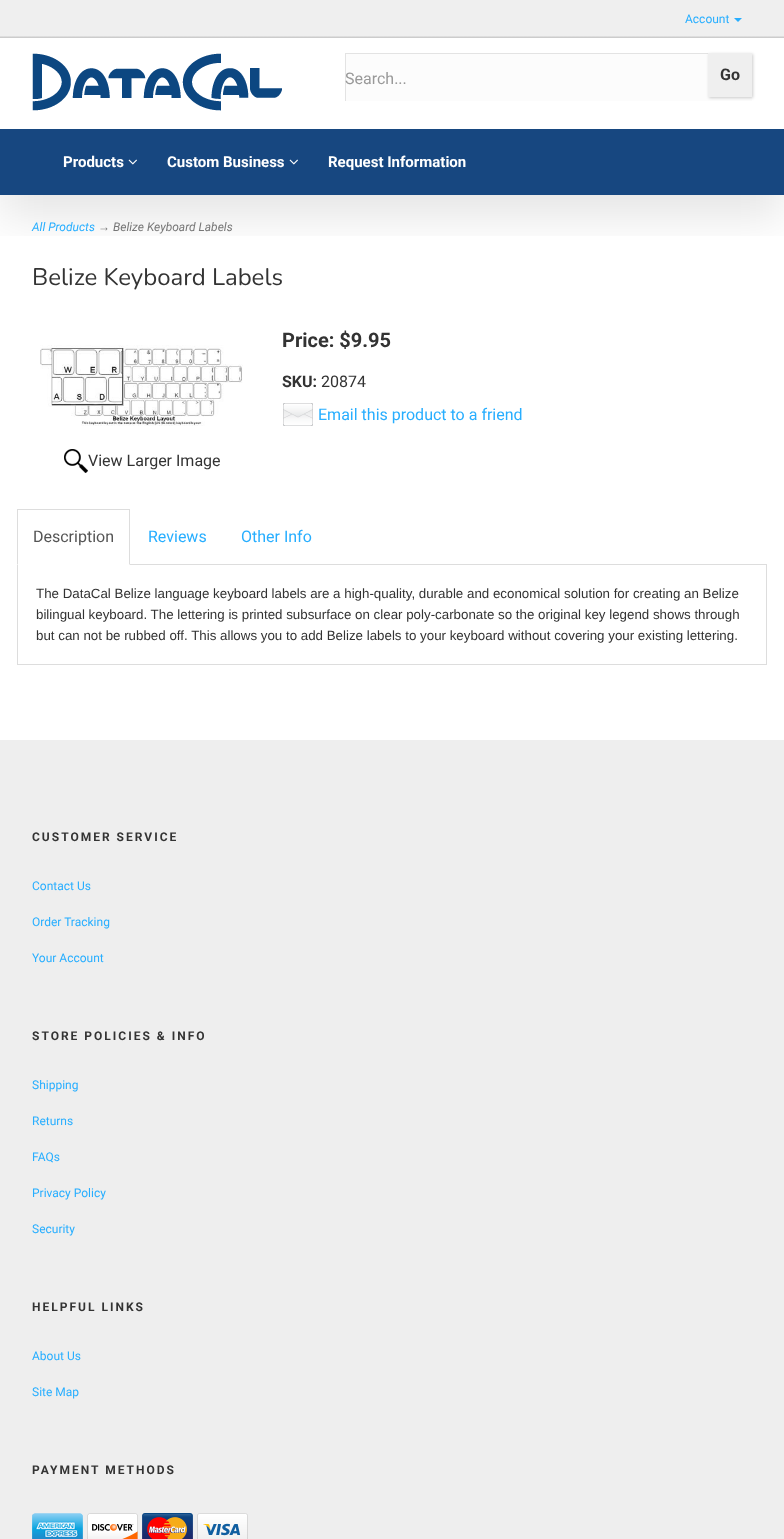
<!DOCTYPE html>
<meta charset="utf-8">
<style>body { margin: 0 } canvas { display: block }</style>
<canvas id="canvas" width="784" height="1539"></canvas>
<img id="img1" src="img_01.png" hidden>
<img id="img2" src="img_02.png" hidden>
<img id="img3" src="img_03.png" hidden>
<img id="img4" src="img_04.png" hidden>
<img id="img5" src="img_05.png" hidden>
<img id="img6" src="img_06.png" hidden>
<img id="img7" src="img_07.png" hidden>
<img id="img8" src="img_08.png" hidden>
<img id="img9" src="img_09.png" hidden>
<script>
window.onload = function () {
	const canvas = document.getElementById("canvas");
	const ctx = canvas.getContext("2d");
	ctx.miterLimit = 4;
	ctx.fontKerning = "normal";
	function txt(s, x, y) {
		ctx.fillText(s, x, y);
	}
	function fill(x, y, w, h) {
		ctx.fillRect(x, y, w, h);
	}
	function img(id, x, y, w, h) {
		ctx.drawImage(document.getElementById(id), x, y, w, h);
	}
	let gradient;

	ctx.fillStyle = "#FFFFFF";
	fill(0, 0, 784, 1539);
	gradient = ctx.createLinearGradient(392, 0, 392, 38);
	gradient.addColorStop(0.94, "#EFEFEF");
	gradient.addColorStop(0.98, "#CCCCCC");
	ctx.fillStyle = gradient;
	fill(0, 0, 784, 38);
	ctx.save();
	ctx.beginPath();
	ctx.rect(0, 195, 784, 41);
	ctx.clip();
	ctx.fillStyle = "rgba(0, 0, 0, 0.1)";
	ctx.filter = "blur(22.5px)";
	ctx.beginPath();
	ctx.rect(0, 60, 784, 157);
	ctx.fill();
	ctx.filter = "none";
	ctx.restore();
	ctx.fillStyle = "#27AEFF";
	ctx.beginPath();
	ctx.moveTo(734, 18);
	ctx.lineTo(742, 18);
	ctx.lineTo(738, 22);
	ctx.closePath();
	ctx.fill();
	img("img1", 32, 53, 250, 58);
	ctx.fillStyle = "#FCFCFC";
	fill(346, 54, 406, 47);
	ctx.save();
	ctx.beginPath();
	ctx.rect(345, 53, 407, 48);
	ctx.clip();
	ctx.fillStyle = "#E3E3E3";
	ctx.beginPath();
	ctx.moveTo(246, -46);
	ctx.lineTo(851, -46);
	ctx.lineTo(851, 200);
	ctx.lineTo(246, 200);
	ctx.closePath();
	ctx.moveTo(346, 54);
	ctx.lineTo(753, 54);
	ctx.lineTo(753, 102);
	ctx.lineTo(346, 102);
	ctx.closePath();
	ctx.fill("evenodd");
	ctx.restore();
	ctx.fillStyle = "rgba(0, 0, 0, 0.2)";
	ctx.filter = "blur(1.5px)";
	ctx.beginPath();
	ctx.rect(709, 54, 44, 44);
	ctx.fill();
	ctx.filter = "none";
	ctx.fillStyle = "#EFEFEF";
	fill(708, 53, 44, 44);
	ctx.fillStyle = "#174780";
	fill(0, 129, 784, 66);
	img("img2", 128, 159, 9, 6);
	img("img2", 289, 159, 9, 6);
	img("img3", 283, 403, 30, 23);
	img("img4", 40, 345, 203, 81);
	img("img5", 64, 449, 24, 24);
	ctx.fillStyle = "#DDDDDD";
	fill(130, 564, 637, 1);
	fill(17, 509, 113, 1);
	ctx.beginPath();
	ctx.moveTo(130, 509);
	ctx.lineTo(130, 565);
	ctx.lineTo(129, 564);
	ctx.lineTo(129, 510);
	ctx.closePath();
	ctx.fill();
	ctx.beginPath();
	ctx.moveTo(17, 565);
	ctx.lineTo(17, 509);
	ctx.lineTo(18, 510);
	ctx.lineTo(18, 564);
	ctx.closePath();
	ctx.fill();
	fill(766, 565, 1, 100);
	fill(17, 664, 750, 1);
	fill(17, 565, 1, 100);
	ctx.fillStyle = "#EEEEEE";
	fill(0, 740, 784, 799);
	img("img6", 32, 1513, 51, 26);
	img("img7", 87, 1513, 51, 26);
	img("img8", 142, 1513, 51, 26);
	img("img9", 197, 1513, 51, 26);
	ctx.font = "12px Roboto";
	ctx.fillStyle = "#27AEFF";
	txt("Account", 685, 23);
	ctx.font = "16px Roboto";
	ctx.fillStyle = "#999999";
	txt("Search...", 345, 84);
	ctx.font = "bold 16px Roboto";
	ctx.fillStyle = "#333333";
	txt("Go", 720, 80);
	ctx.font = "bold 15px Roboto";
	ctx.fillStyle = "#FFFFFF";
	txt("Products", 63, 167);
	txt("Custom Business", 167, 167);
	txt("Request Information", 328, 167);
	ctx.font = "italic 12px Roboto";
	ctx.fillStyle = "#27AEFF";
	txt("All Products", 32, 231);
	ctx.font = "italic 12px Liberation Sans";
	ctx.fillStyle = "#777777";
	txt("→", 98, 231);
	ctx.font = "italic 12px Roboto";
	txt("Belize Keyboard Labels", 113, 231);
	ctx.font = "24px Nunito";
	ctx.fillStyle = "#333333";
	txt("Belize Keyboard Labels", 32, 285);
	ctx.font = "bold 20px Roboto";
	txt("Price: $9.95", 282, 347);
	ctx.font = "bold 16px Roboto";
	txt("SKU:", 282, 387);
	ctx.font = "16px Roboto";
	txt("20874", 321, 387);
	ctx.fillStyle = "#27AEFF";
	txt("Email this product to a friend", 318, 420);
	ctx.fillStyle = "#333333";
	txt("View Larger Image", 88, 466);
	ctx.fillStyle = "#555555";
	txt("Description", 33, 542);
	ctx.fillStyle = "#27AEFF";
	txt("Reviews", 148, 542);
	txt("Other Info", 241, 542);
	ctx.font = "13.33px Liberation Sans";
	ctx.fillStyle = "#333333";
	txt("The DataCal Belize language keyboard labels are a high-quality, durable and economical solution for creating an Belize", 36, 598);
	txt("bilingual keyboard. The lettering is printed subsurface on clear poly-carbonate so the original key legend shows through", 36, 619);
	txt("but can not be rubbed off. This allows you to add Belize labels to your keyboard without covering your existing lettering.", 36, 640);
	ctx.letterSpacing = "2px";
	ctx.font = "bold 12px Roboto";
	txt("CUSTOMER SERVICE", 32, 841);
	ctx.letterSpacing = "0px";
	ctx.font = "12px Roboto";
	ctx.fillStyle = "#27AEFF";
	txt("Contact Us", 32, 890);
	txt("Order Tracking", 32, 926);
	txt("Your Account", 32, 962);
	ctx.letterSpacing = "2px";
	ctx.font = "bold 12px Roboto";
	ctx.fillStyle = "#333333";
	txt("STORE POLICIES & INFO", 32, 1040);
	ctx.letterSpacing = "0px";
	ctx.font = "12px Roboto";
	ctx.fillStyle = "#27AEFF";
	txt("Shipping", 32, 1089);
	txt("Returns", 32, 1125);
	txt("FAQs", 32, 1161);
	txt("Privacy Policy", 32, 1197);
	txt("Security", 32, 1233);
	ctx.letterSpacing = "2px";
	ctx.font = "bold 12px Roboto";
	ctx.fillStyle = "#333333";
	txt("HELPFUL LINKS", 32, 1311);
	ctx.letterSpacing = "0px";
	ctx.font = "12px Roboto";
	ctx.fillStyle = "#27AEFF";
	txt("About Us", 32, 1360);
	txt("Site Map", 32, 1396);
	ctx.letterSpacing = "2px";
	ctx.font = "bold 12px Roboto";
	ctx.fillStyle = "#333333";
	txt("PAYMENT METHODS", 32, 1474);
};
</script>
